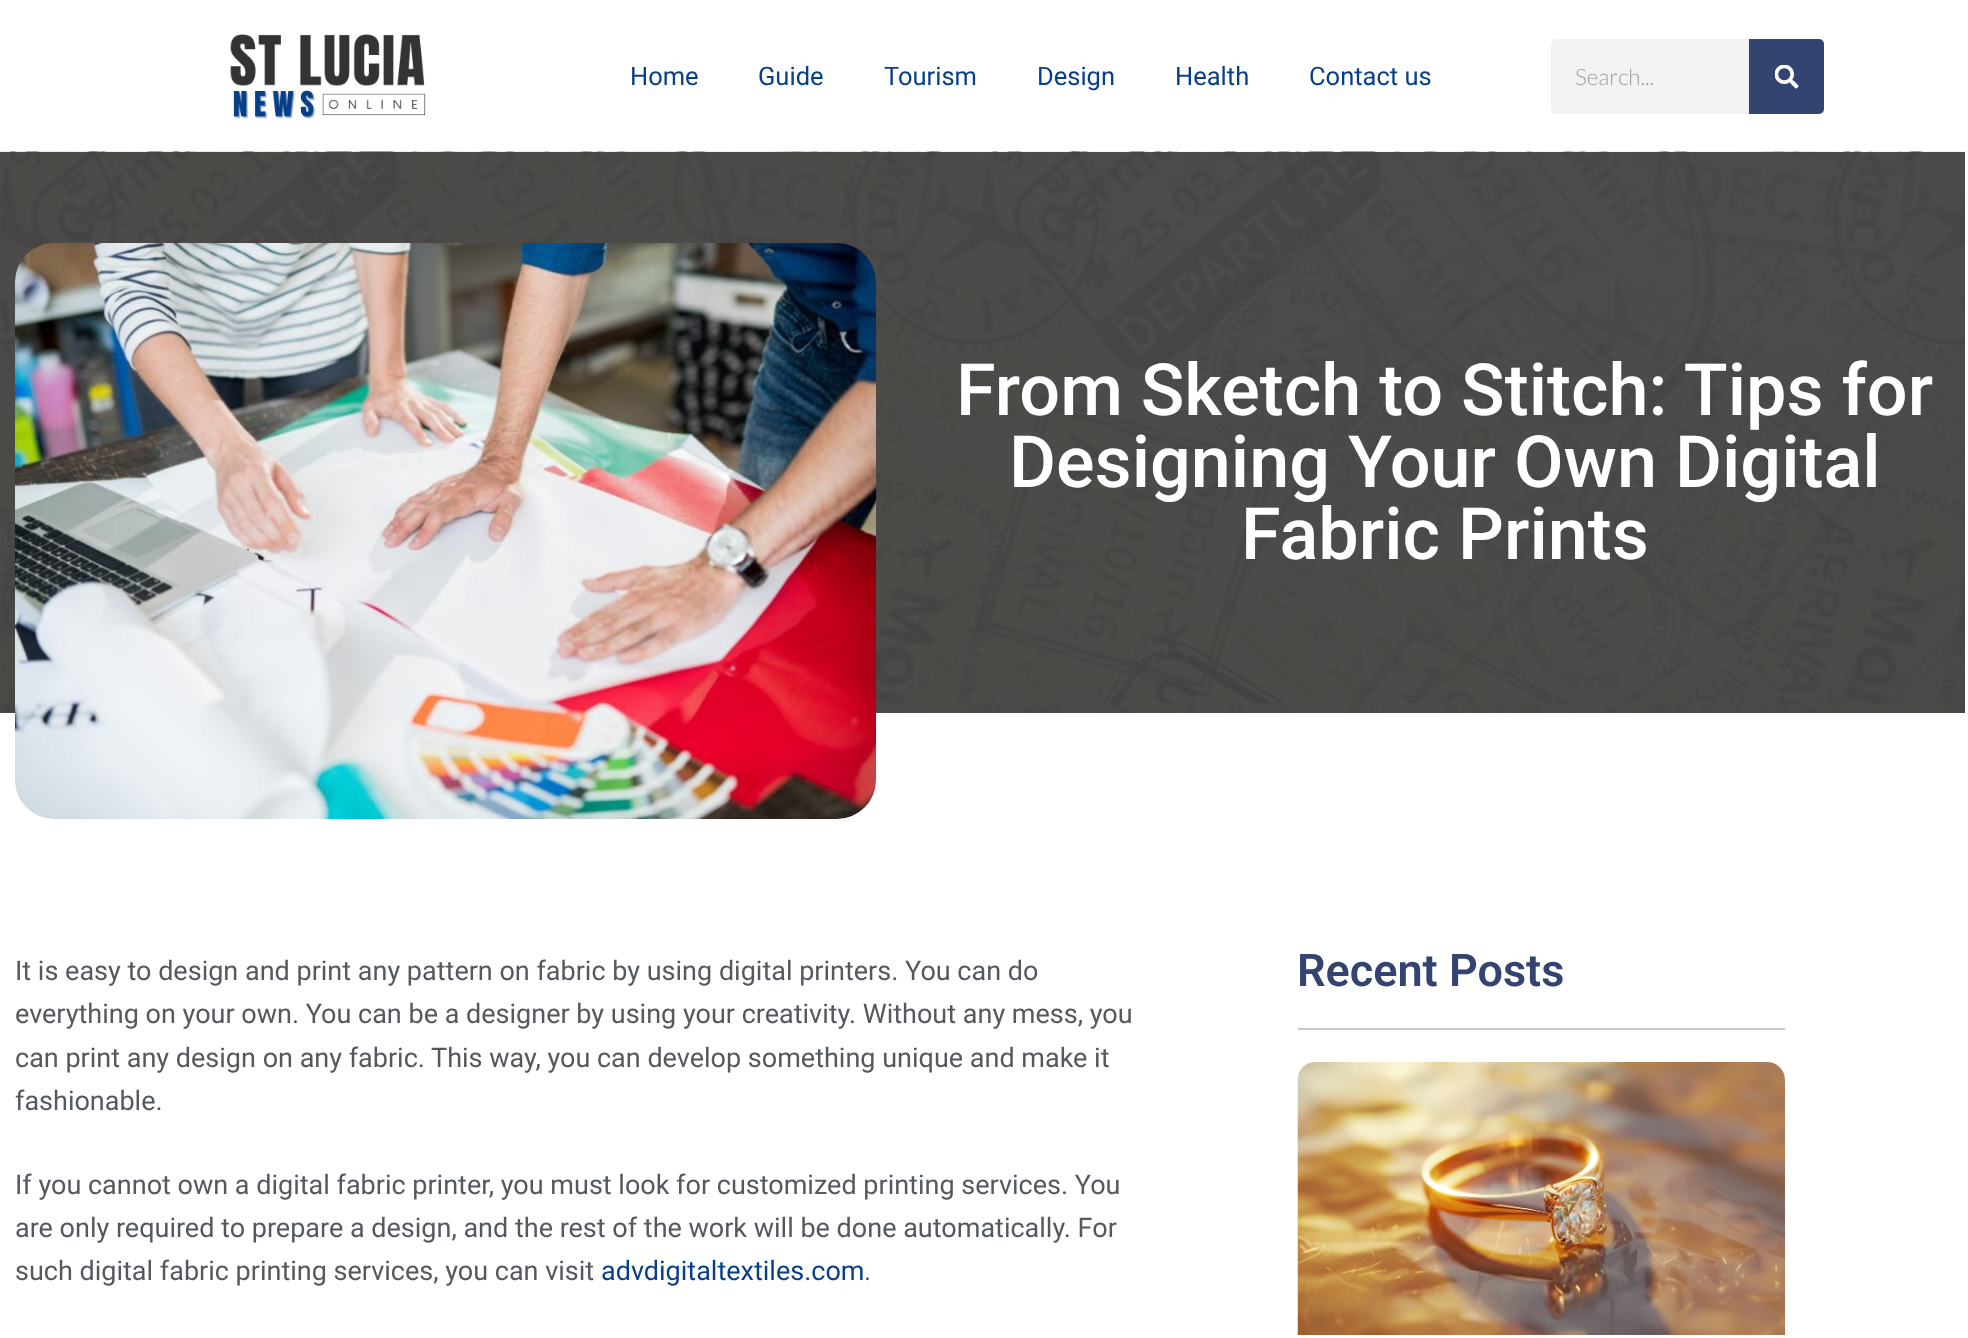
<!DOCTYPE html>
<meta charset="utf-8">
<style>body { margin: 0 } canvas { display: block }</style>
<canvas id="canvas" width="1968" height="1338"></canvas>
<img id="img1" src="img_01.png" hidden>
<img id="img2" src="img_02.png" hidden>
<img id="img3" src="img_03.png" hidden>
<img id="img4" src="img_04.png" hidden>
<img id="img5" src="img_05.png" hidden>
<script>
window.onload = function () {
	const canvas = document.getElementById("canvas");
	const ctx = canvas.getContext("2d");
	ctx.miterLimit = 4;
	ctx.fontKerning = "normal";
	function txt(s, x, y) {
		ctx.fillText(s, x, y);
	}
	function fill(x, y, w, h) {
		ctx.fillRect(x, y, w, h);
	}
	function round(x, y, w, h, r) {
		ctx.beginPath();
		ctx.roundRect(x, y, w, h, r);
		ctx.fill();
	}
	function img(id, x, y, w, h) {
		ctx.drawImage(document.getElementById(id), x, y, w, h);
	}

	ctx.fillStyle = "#FFFFFF";
	fill(0, 0, 1968, 1338);
	ctx.fillStyle = "#4C4C4C";
	fill(0, 712, 1965, 1);
	img("img1", 230, 34, 196, 85);
	ctx.fillStyle = "#F1F2F3";
	round(1551, 39, 273, 75, 5);
	ctx.fillStyle = "#344470";
	ctx.beginPath();
	ctx.roundRect(1749, 39, 75, 75, [0, 5, 5, 0]);
	ctx.fill();
	img("img2", 1775, 65, 24, 24);
	img("img3", 0, 151, 1965, 562);
	img("img4", 15, 243, 861, 576);
	ctx.fillStyle = "#C7C7C7";
	fill(1298, 1028, 487, 2);
	img("img5", 1297, 1062, 488, 273);
	ctx.font = "25.5px Roboto";
	ctx.fillStyle = "#083F89";
	txt("Home", 630, 85);
	txt("Guide", 758, 85);
	txt("Tourism", 884, 85);
	txt("Design", 1037, 85);
	txt("Health", 1175, 85);
	txt("Contact us", 1309, 85);
	ctx.font = "300 22.5px Lato";
	ctx.fillStyle = "#9E9E9E";
	txt("Search...", 1575, 85);
	ctx.font = "500 72px Roboto";
	ctx.fillStyle = "#FFFFFF";
	txt("From Sketch to Stitch: Tips for", 956, 415);
	txt("Designing Your Own Digital", 1009, 487);
	txt("Fabric Prints", 1241, 559);
	ctx.font = "27px Roboto";
	ctx.fillStyle = "#54595F";
	txt("It is easy to design and print any pattern on fabric by using digital printers. You can do", 15, 980);
	txt("everything on your own. You can be a designer by using your creativity. Without any mess, you", 15, 1023);
	txt("can print any design on any fabric. This way, you can develop something unique and make it", 15, 1067);
	txt("fashionable.", 15, 1110);
	txt("If you cannot own a digital fabric printer, you must look for customized printing services. You", 15, 1194);
	txt("are only required to prepare a design, and the rest of the work will be done automatically. For", 15, 1237);
	txt("such digital fabric printing services, you can visit", 15, 1280);
	ctx.fillStyle = "#083F89";
	txt("advdigitaltextiles.com", 601, 1280);
	ctx.fillStyle = "#54595F";
	txt(".", 864, 1280);
	ctx.font = "600 45px Roboto";
	ctx.fillStyle = "#344470";
	txt("Recent Posts", 1297, 986);
};
</script>
